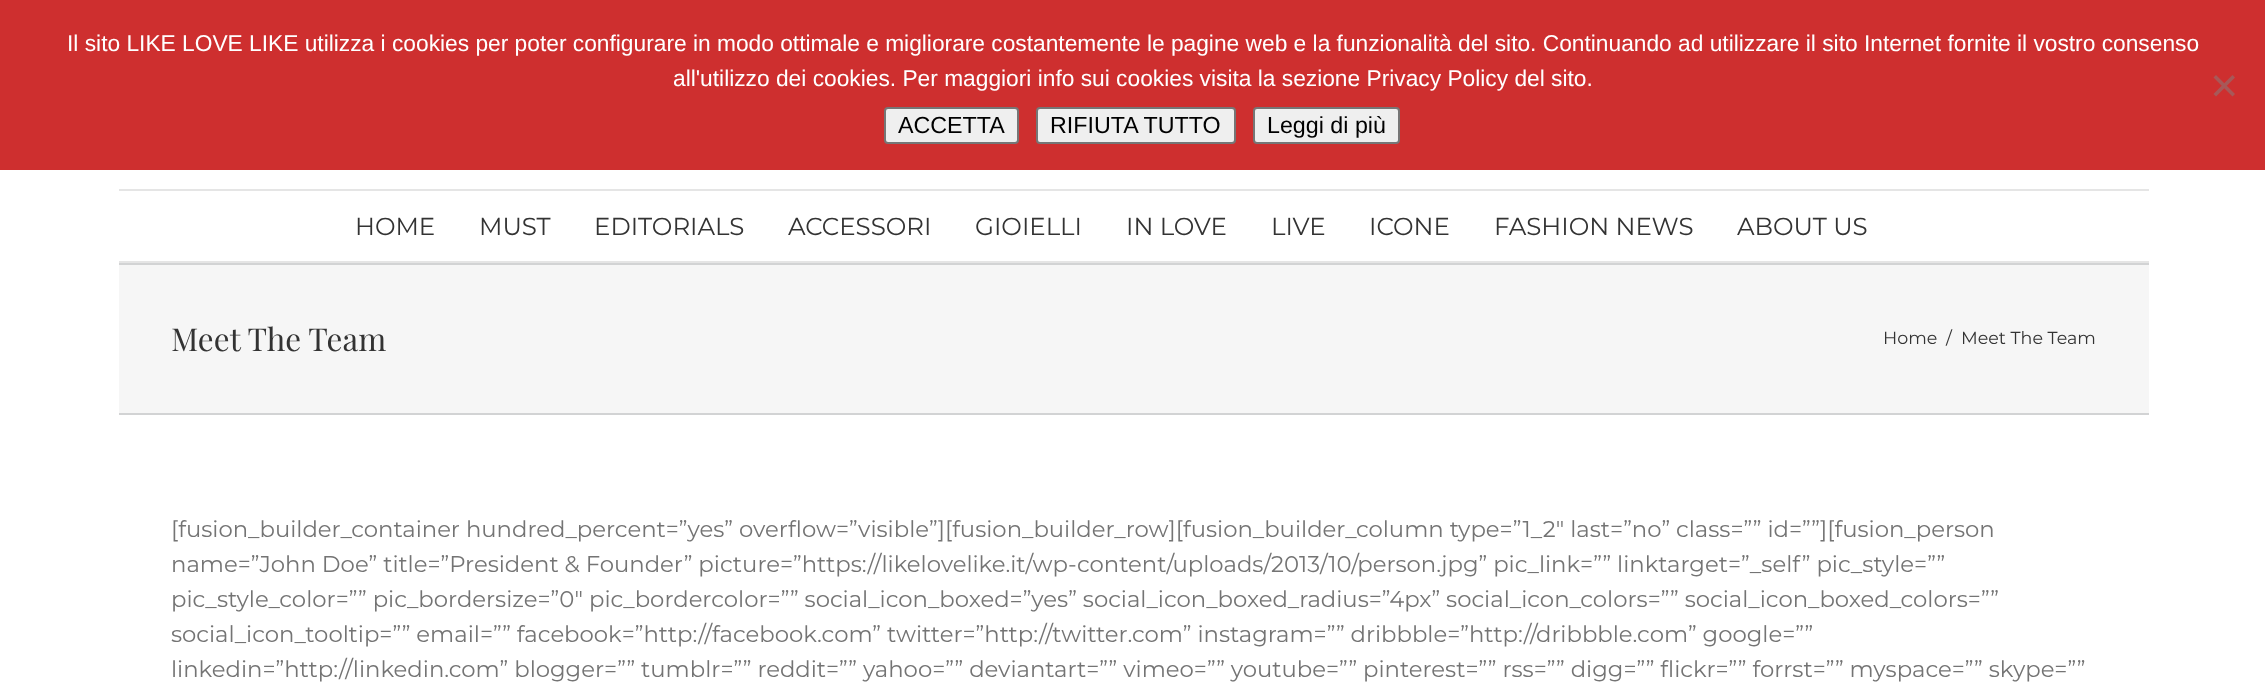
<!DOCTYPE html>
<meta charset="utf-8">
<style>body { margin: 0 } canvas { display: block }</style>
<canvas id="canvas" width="2265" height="690"></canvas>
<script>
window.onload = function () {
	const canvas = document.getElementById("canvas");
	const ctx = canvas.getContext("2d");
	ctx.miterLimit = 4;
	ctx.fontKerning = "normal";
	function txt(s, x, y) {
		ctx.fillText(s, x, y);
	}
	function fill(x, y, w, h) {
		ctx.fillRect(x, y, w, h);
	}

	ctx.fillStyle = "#FFFFFF";
	fill(0, 0, 2265, 690);
	ctx.fillStyle = "#CE2F2F";
	fill(0, 0, 2265, 170);
	ctx.fillStyle = "#A75858";
	ctx.beginPath();
	ctx.moveTo(2232.5, 75);
	ctx.lineTo(2235, 77.5);
	ctx.lineTo(2216, 96.5);
	ctx.lineTo(2213.5, 94);
	ctx.closePath();
	ctx.fill();
	ctx.beginPath();
	ctx.moveTo(2213.5, 77.5);
	ctx.lineTo(2216, 75);
	ctx.lineTo(2235, 94);
	ctx.lineTo(2232.5, 96.5);
	ctx.closePath();
	ctx.fill();
	ctx.fillStyle = "#EFEFEF";
	ctx.beginPath();
	ctx.roundRect(885, 108, 133, 35, 3);
	ctx.fill();
	ctx.strokeStyle = "#767676";
	ctx.lineWidth = 2;
	ctx.stroke();
	ctx.beginPath();
	ctx.roundRect(1037, 108, 198, 35, 3);
	ctx.fill();
	ctx.stroke();
	ctx.beginPath();
	ctx.roundRect(1254, 108, 145, 35, 3);
	ctx.fill();
	ctx.stroke();
	ctx.fillStyle = "#E5E5E5";
	fill(119, 189, 2030, 2);
	fill(119, 261, 2030, 2);
	ctx.fillStyle = "#F6F6F6";
	fill(119, 265, 2030, 148);
	ctx.fillStyle = "#D2D3D4";
	fill(119, 263, 2030, 2);
	fill(119, 413, 2030, 2);
	ctx.font = "22.75px Liberation Sans";
	ctx.fillStyle = "#FFFFFF";
	txt("Il sito LIKE LOVE LIKE utilizza i cookies per poter configurare in modo ottimale e migliorare costantemente le pagine web e la funzionalità del sito. Continuando ad utilizzare il sito Internet fornite il vostro consenso", 67, 51);
	txt("all'utilizzo dei cookies. Per maggiori info sui cookies visita la sezione Privacy Policy del sito.", 673, 86);
	ctx.font = "23.25px Liberation Sans";
	ctx.fillStyle = "#000000";
	txt("ACCETTA", 898, 133);
	txt("RIFIUTA TUTTO", 1050, 133);
	txt("Leggi di più", 1267, 133);
	ctx.font = "24.5px Montserrat";
	ctx.fillStyle = "#333333";
	txt("HOME", 355, 235);
	txt("MUST", 479, 235);
	txt("EDITORIALS", 594, 235);
	txt("ACCESSORI", 788, 235);
	txt("GIOIELLI", 975, 235);
	txt("IN LOVE", 1126, 235);
	txt("LIVE", 1271, 235);
	txt("ICONE", 1369, 235);
	txt("FASHION NEWS", 1494, 235);
	txt("ABOUT US", 1737, 235);
	ctx.font = "31.5px Playfair Display";
	txt("Meet The Team", 171, 351);
	ctx.font = "17.5px Montserrat";
	txt("Home", 1883, 344);
	txt("/", 1946, 344);
	txt("Meet The Team", 1961, 344);
	ctx.font = "22.75px Montserrat";
	ctx.fillStyle = "#747474";
	txt("[fusion_builder_container hundred_percent=”yes” overflow=”visible”][fusion_builder_row][fusion_builder_column type=”1_2″ last=”no” class=”” id=””][fusion_person", 171, 537);
	txt("name=”John Doe” title=”President & Founder” picture=”https://likelovelike.it/wp-content/uploads/2013/10/person.jpg” pic_link=”” linktarget=”_self” pic_style=””", 171, 572);
	txt("pic_style_color=”” pic_bordersize=”0″ pic_bordercolor=”” social_icon_boxed=”yes” social_icon_boxed_radius=”4px” social_icon_colors=”” social_icon_boxed_colors=””", 171, 607);
	txt("social_icon_tooltip=”” email=”” facebook=”http://facebook.com” twitter=”http://twitter.com” instagram=”” dribbble=”http://dribbble.com” google=””", 171, 642);
	txt("linkedin=”http://linkedin.com” blogger=”” tumblr=”” reddit=”” yahoo=”” deviantart=”” vimeo=”” youtube=”” pinterest=”” rss=”” digg=”” flickr=”” forrst=”” myspace=”” skype=””", 171, 677);
};
</script>
